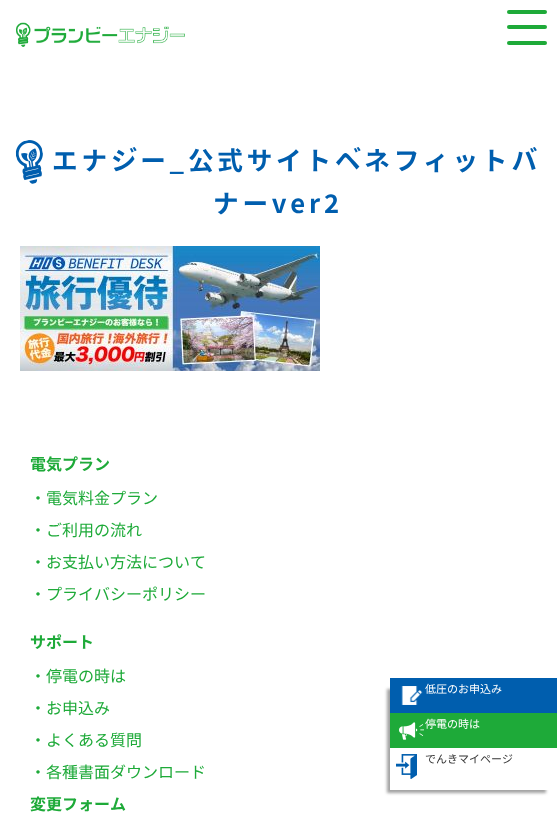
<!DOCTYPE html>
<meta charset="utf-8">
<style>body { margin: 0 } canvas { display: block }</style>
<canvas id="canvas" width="557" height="832"></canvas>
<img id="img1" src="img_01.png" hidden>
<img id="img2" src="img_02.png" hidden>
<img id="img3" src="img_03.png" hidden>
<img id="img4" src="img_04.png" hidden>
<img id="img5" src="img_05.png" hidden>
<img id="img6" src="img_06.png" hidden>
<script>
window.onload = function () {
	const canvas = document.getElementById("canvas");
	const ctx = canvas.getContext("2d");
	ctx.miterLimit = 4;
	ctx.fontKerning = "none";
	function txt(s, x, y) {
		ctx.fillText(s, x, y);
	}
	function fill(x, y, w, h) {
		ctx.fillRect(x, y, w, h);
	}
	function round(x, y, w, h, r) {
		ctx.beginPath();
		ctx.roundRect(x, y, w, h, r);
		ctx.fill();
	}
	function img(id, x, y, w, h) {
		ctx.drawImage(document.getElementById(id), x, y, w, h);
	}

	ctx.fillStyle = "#FFFFFF";
	fill(0, 0, 557, 832);
	img("img1", 16, 22, 169, 25);
	ctx.fillStyle = "#1EAA39";
	round(507, 10, 40, 4, 2);
	round(507, 25, 40, 4, 2);
	round(507, 41, 40, 4, 2);
	img("img2", 15, 140, 28, 44);
	img("img3", 20, 246, 300, 125);
	ctx.save();
	ctx.beginPath();
	ctx.moveTo(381, 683);
	ctx.lineTo(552, 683);
	ctx.lineTo(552, 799);
	ctx.lineTo(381, 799);
	ctx.closePath();
	ctx.moveTo(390, 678);
	ctx.lineTo(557, 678);
	ctx.lineTo(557, 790);
	ctx.lineTo(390, 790);
	ctx.closePath();
	ctx.clip("evenodd");
	ctx.fillStyle = "rgba(100, 100, 100, 0.6)";
	ctx.filter = "blur(1.5px)";
	ctx.beginPath();
	ctx.rect(387, 689, 159, 104);
	ctx.fill();
	ctx.filter = "none";
	ctx.restore();
	ctx.fillStyle = "#005EAE";
	fill(390, 678, 167, 35);
	img("img4", 401, 686, 22, 19);
	ctx.fillStyle = "#1EAA39";
	fill(390, 713, 167, 35);
	img("img5", 399, 722, 25, 18);
	img("img6", 396, 754, 21, 25);
	ctx.letterSpacing = "3.8px";
	ctx.font = "bold 25.6px Noto Sans JP";
	ctx.fillStyle = "#005EAE";
	txt("エナジー_公式サイトベネフィットバ", 52, 170);
	txt("ナーver2", 213, 213);
	ctx.letterSpacing = "0px";
	ctx.font = "bold 16px Noto Sans JP";
	ctx.fillStyle = "#1EAA39";
	txt("電気プラン", 30, 470);
	ctx.font = "16px Noto Sans JP";
	txt("・電気料金プラン", 30, 504);
	txt("・ご利用の流れ", 30, 536);
	txt("・お支払い方法について", 30, 568);
	txt("・プライバシーポリシー", 30, 600);
	ctx.font = "bold 16px Noto Sans JP";
	txt("サポート", 30, 648);
	ctx.font = "16px Noto Sans JP";
	txt("・停電の時は", 30, 682);
	txt("・お申込み", 30, 714);
	txt("・よくある質問", 30, 746);
	txt("・各種書面ダウンロード", 30, 778);
	ctx.font = "bold 16px Noto Sans JP";
	txt("変更フォーム", 30, 810);
	ctx.font = "11px Noto Sans JP";
	ctx.fillStyle = "#FFFFFF";
	txt("低圧のお申込み", 425, 693);
	txt("停電の時は", 425, 728);
	ctx.fillStyle = "#333333";
	txt("でんきマイページ", 425, 763);
};
</script>
